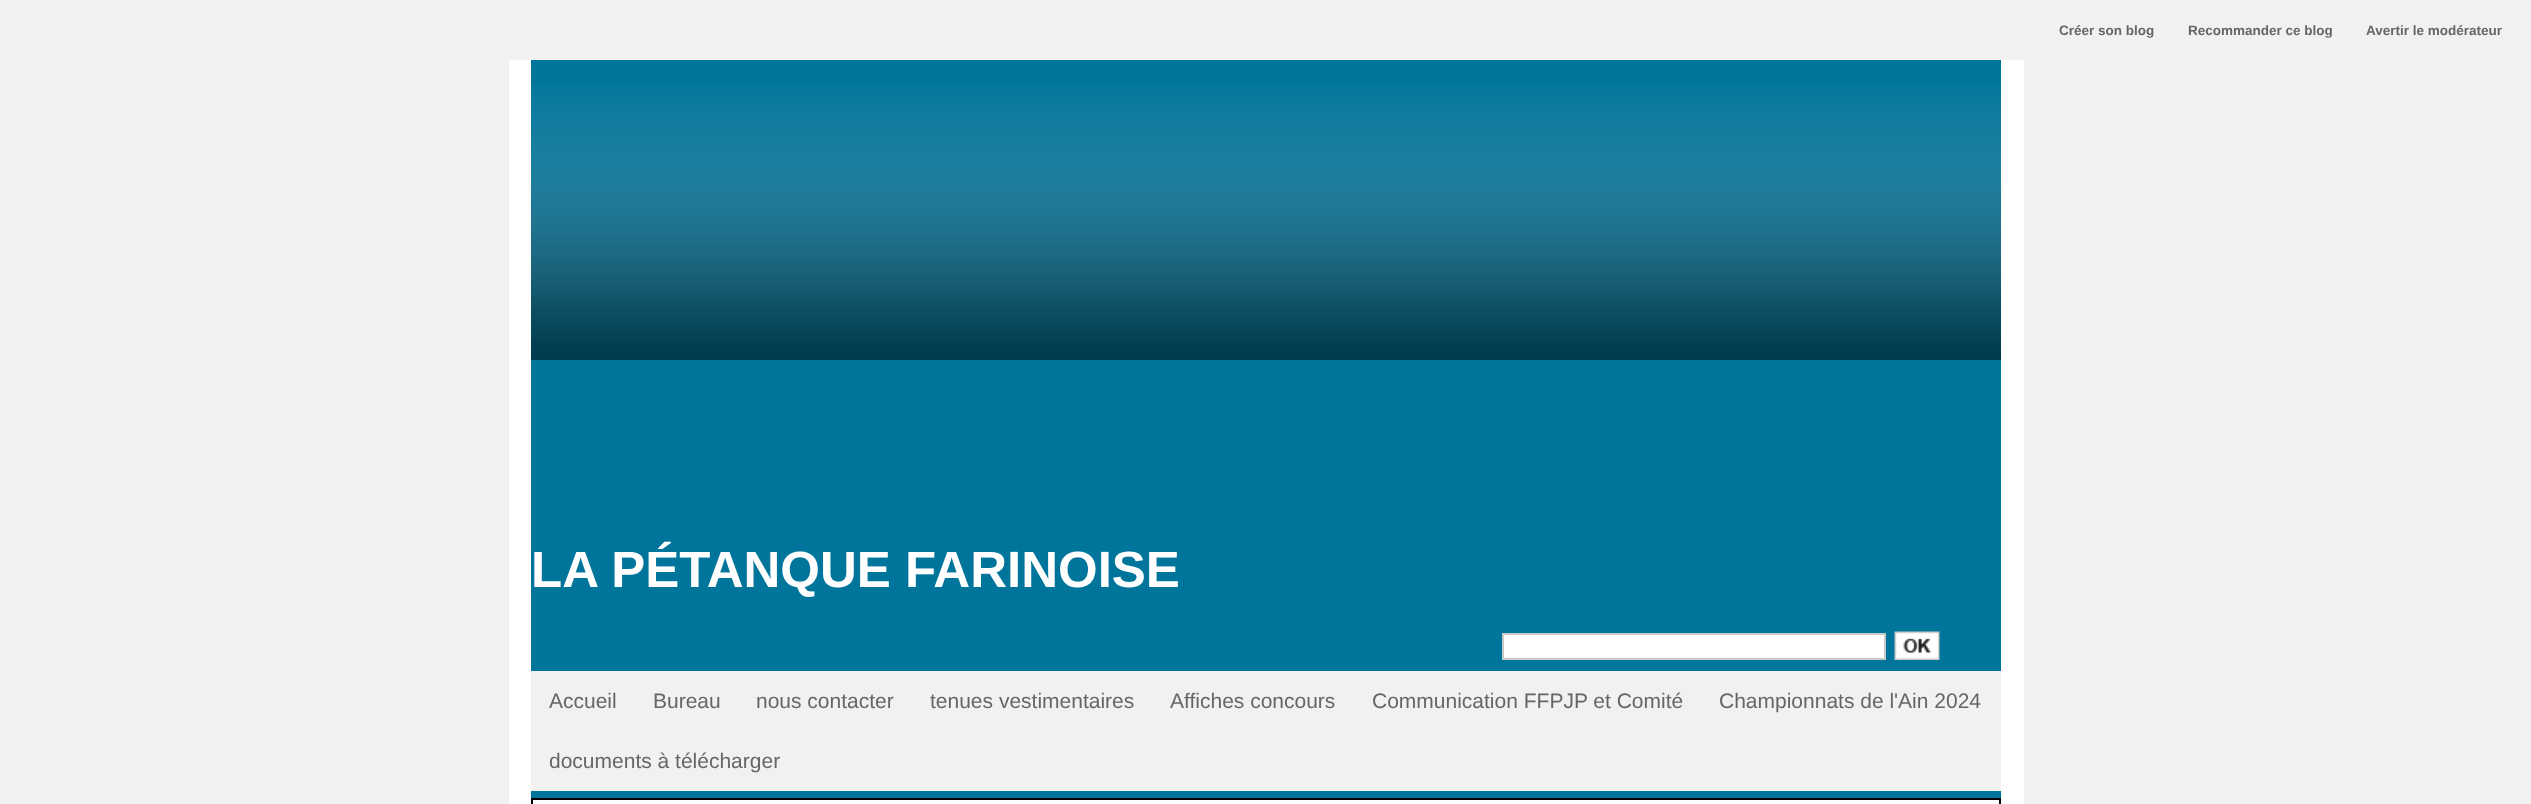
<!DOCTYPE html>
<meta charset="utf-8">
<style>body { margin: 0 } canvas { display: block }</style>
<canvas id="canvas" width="2531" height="804"></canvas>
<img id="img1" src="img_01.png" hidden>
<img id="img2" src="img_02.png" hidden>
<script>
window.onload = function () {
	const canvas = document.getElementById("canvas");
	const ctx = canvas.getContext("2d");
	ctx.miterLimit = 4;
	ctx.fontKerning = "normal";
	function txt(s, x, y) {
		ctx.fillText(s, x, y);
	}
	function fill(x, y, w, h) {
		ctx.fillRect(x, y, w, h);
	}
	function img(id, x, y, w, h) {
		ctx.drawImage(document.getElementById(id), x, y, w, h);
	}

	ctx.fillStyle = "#F1F1F1";
	fill(0, 0, 2531, 804);
	ctx.fillStyle = "#FFFFFF";
	fill(2001, 60, 23, 744);
	fill(509, 60, 22, 744);
	ctx.fillStyle = "#00759B";
	fill(531, 60, 1470, 738);
	img("img1", 531, 83, 1470, 277);
	ctx.fillStyle = "#FFFFFF";
	ctx.beginPath();
	ctx.rect(1503, 634, 382, 25);
	ctx.fill();
	ctx.strokeStyle = "#C9C9C9";
	ctx.lineWidth = 2;
	ctx.stroke();
	img("img2", 1894, 631, 46, 29);
	ctx.fillStyle = "#F1F1F1";
	fill(531, 671, 1470, 120);
	ctx.fillStyle = "#FFFFFF";
	ctx.beginPath();
	ctx.rect(532, 799, 1468, 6);
	ctx.fill();
	ctx.strokeStyle = "#000000";
	ctx.stroke();
	ctx.font = "bold 13.5px Liberation Sans";
	ctx.fillStyle = "#666666";
	txt("Créer son blog", 2059, 35);
	txt("Recommander ce blog", 2188, 35);
	txt("Avertir le modérateur", 2366, 35);
	ctx.font = "bold 51px Liberation Sans";
	ctx.fillStyle = "#FFFFFF";
	txt("LA PÉTANQUE FARINOISE", 531, 587);
	ctx.font = "21px Liberation Sans";
	ctx.fillStyle = "#666666";
	txt("Accueil", 549, 708);
	txt("Bureau", 653, 708);
	txt("nous contacter", 756, 708);
	txt("tenues vestimentaires", 930, 708);
	txt("Affiches concours", 1170, 708);
	txt("Communication FFPJP et Comité", 1372, 708);
	txt("Championnats de l'Ain 2024", 1719, 708);
	txt("documents à télécharger", 549, 768);
};
</script>
